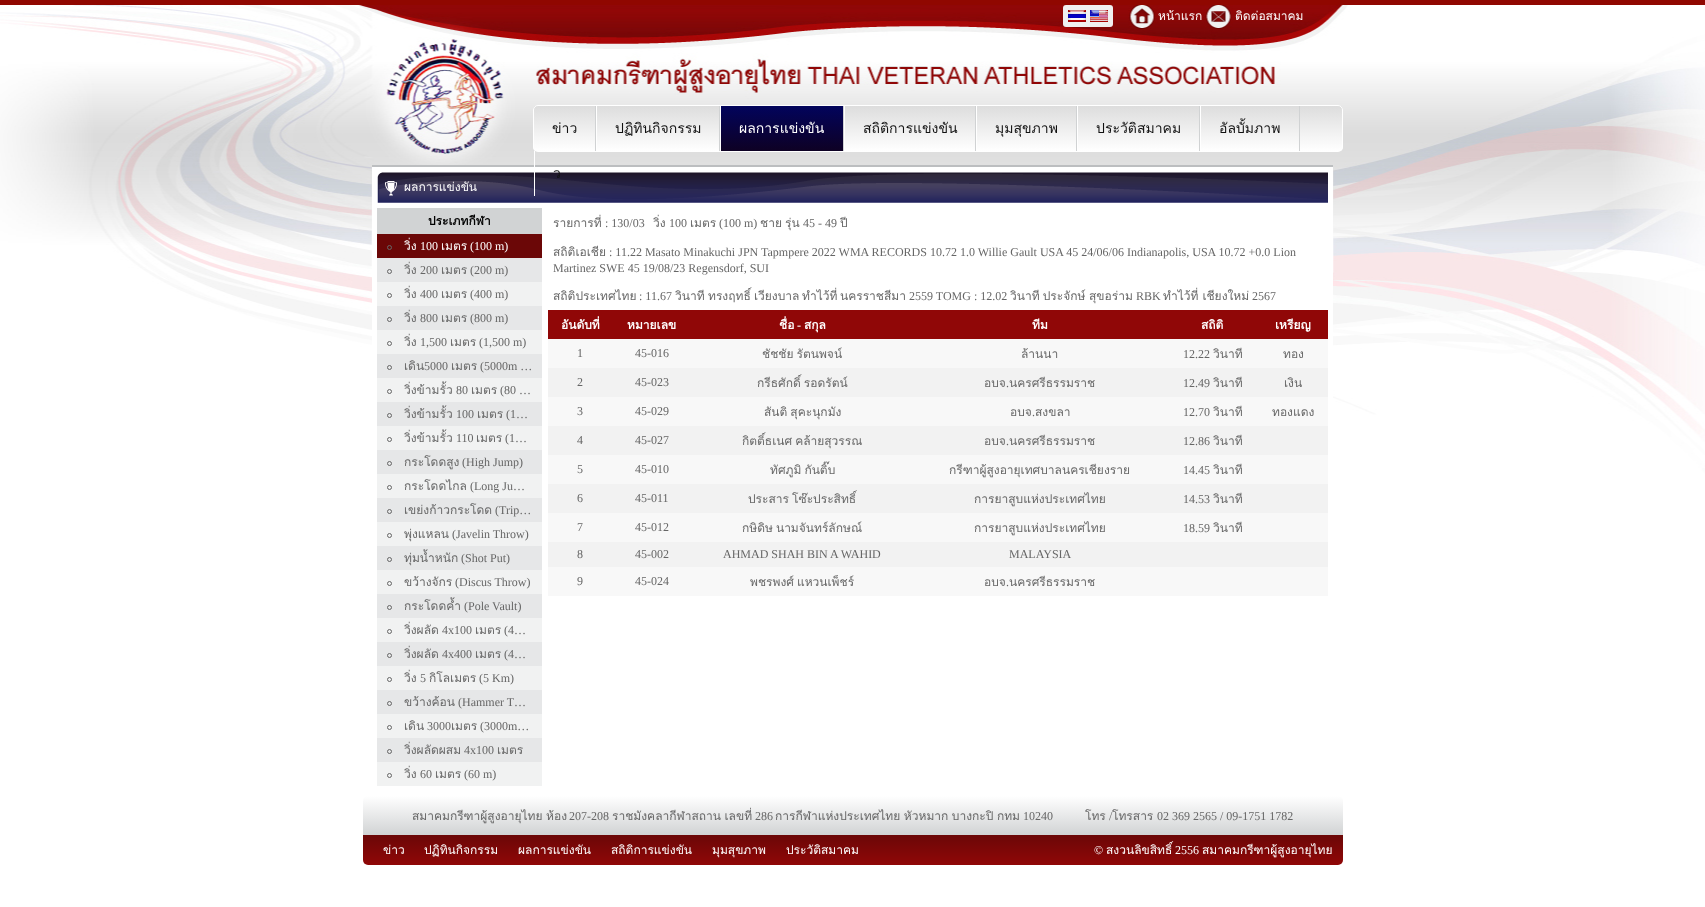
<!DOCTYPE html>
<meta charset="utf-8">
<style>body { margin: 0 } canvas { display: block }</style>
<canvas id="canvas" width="1705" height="907"></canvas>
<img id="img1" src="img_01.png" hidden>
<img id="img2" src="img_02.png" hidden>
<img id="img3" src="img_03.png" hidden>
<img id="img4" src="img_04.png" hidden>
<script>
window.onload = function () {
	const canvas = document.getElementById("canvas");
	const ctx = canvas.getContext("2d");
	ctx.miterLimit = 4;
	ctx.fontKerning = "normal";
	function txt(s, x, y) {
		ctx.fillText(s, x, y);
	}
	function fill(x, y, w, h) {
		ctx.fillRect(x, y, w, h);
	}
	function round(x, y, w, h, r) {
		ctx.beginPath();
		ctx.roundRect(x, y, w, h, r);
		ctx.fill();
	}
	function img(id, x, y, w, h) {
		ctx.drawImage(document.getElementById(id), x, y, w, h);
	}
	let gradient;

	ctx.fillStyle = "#FFFFFF";
	fill(0, 0, 1705, 907);
	ctx.fillStyle = "#900700";
	fill(0, 0, 1705, 5);
	img("img1", 0, 5, 1705, 495);
	ctx.fillStyle = "#F0F0F0";
	round(1063, 5, 50, 22, 3);
	img("img2", 1068, 10, 18, 12);
	img("img3", 1090, 10, 18, 12);
	ctx.save();
	ctx.beginPath();
	ctx.roundRect(533, 105, 810, 47, 5);
	ctx.clip();
	gradient = ctx.createLinearGradient(938, 106, 938, 151);
	gradient.addColorStop(0, "#DDDDDD");
	gradient.addColorStop(1, "#FFFFFF");
	ctx.fillStyle = gradient;
	fill(533, 106, 810, 45);
	ctx.restore();
	ctx.beginPath();
	ctx.roundRect(533.5, 105.5, 809, 46, 4.5);
	ctx.strokeStyle = "#FFFFFF";
	ctx.stroke();
	ctx.fillStyle = "#D0D2D3";
	fill(595, 106, 1, 45);
	fill(719, 106, 1, 45);
	ctx.fillStyle = "#FFFFFF";
	fill(596, 106, 1, 45);
	gradient = ctx.createLinearGradient(782, 106, 782, 151);
	gradient.addColorStop(0, "#02045C");
	gradient.addColorStop(1, "#0E0124");
	ctx.fillStyle = gradient;
	fill(721, 106, 122, 45);
	ctx.fillStyle = "#D0D2D3";
	fill(843, 106, 1, 45);
	ctx.fillStyle = "#FFFFFF";
	fill(720, 106, 1, 45);
	ctx.fillStyle = "#D0D2D3";
	fill(975, 106, 1, 45);
	ctx.fillStyle = "#FFFFFF";
	fill(844, 106, 1, 45);
	ctx.fillStyle = "#D0D2D3";
	fill(1076, 106, 1, 45);
	ctx.fillStyle = "#FFFFFF";
	fill(976, 106, 1, 45);
	ctx.fillStyle = "#D0D2D3";
	fill(1199, 106, 1, 45);
	ctx.fillStyle = "#FFFFFF";
	fill(1077, 106, 1, 45);
	ctx.fillStyle = "#D0D2D3";
	fill(1299, 106, 1, 45);
	ctx.fillStyle = "#FFFFFF";
	fill(1200, 106, 1, 45);
	fill(372, 167, 961, 333);
	ctx.fillStyle = "#BCBEC0";
	fill(372, 165, 961, 2);
	img("img4", 377, 172, 951, 31);
	ctx.fillStyle = "#FFFFFF";
	fill(534, 151, 1, 45);
	ctx.fillStyle = "#D1D3D4";
	fill(377, 208, 165, 26);
	ctx.fillStyle = "#F1F2F2";
	fill(377, 282, 165, 504);
	ctx.fillStyle = "#6B0707";
	fill(377, 234, 165, 24);
	ctx.beginPath();
	ctx.arc(389.5, 247.5, 2, 0, Math.PI * 2);
	ctx.strokeStyle = "#666666";
	ctx.stroke();
	ctx.fillStyle = "#E6E7E8";
	fill(377, 258, 165, 24);
	ctx.beginPath();
	ctx.arc(389.5, 271.5, 2, 0, Math.PI * 2);
	ctx.stroke();
	ctx.beginPath();
	ctx.arc(389.5, 295.5, 2, 0, Math.PI * 2);
	ctx.stroke();
	fill(377, 306, 165, 24);
	ctx.beginPath();
	ctx.arc(389.5, 319.5, 2, 0, Math.PI * 2);
	ctx.stroke();
	ctx.beginPath();
	ctx.arc(389.5, 343.5, 2, 0, Math.PI * 2);
	ctx.stroke();
	fill(377, 354, 165, 24);
	ctx.beginPath();
	ctx.arc(389.5, 367.5, 2, 0, Math.PI * 2);
	ctx.stroke();
	ctx.beginPath();
	ctx.arc(389.5, 391.5, 2, 0, Math.PI * 2);
	ctx.stroke();
	fill(377, 402, 165, 24);
	ctx.beginPath();
	ctx.arc(389.5, 415.5, 2, 0, Math.PI * 2);
	ctx.stroke();
	ctx.beginPath();
	ctx.arc(389.5, 439.5, 2, 0, Math.PI * 2);
	ctx.stroke();
	fill(377, 450, 165, 24);
	ctx.beginPath();
	ctx.arc(389.5, 463.5, 2, 0, Math.PI * 2);
	ctx.stroke();
	ctx.beginPath();
	ctx.arc(389.5, 487.5, 2, 0, Math.PI * 2);
	ctx.stroke();
	fill(377, 498, 165, 24);
	ctx.beginPath();
	ctx.arc(389.5, 511.5, 2, 0, Math.PI * 2);
	ctx.stroke();
	ctx.beginPath();
	ctx.arc(389.5, 535.5, 2, 0, Math.PI * 2);
	ctx.stroke();
	fill(377, 546, 165, 24);
	ctx.beginPath();
	ctx.arc(389.5, 559.5, 2, 0, Math.PI * 2);
	ctx.stroke();
	ctx.beginPath();
	ctx.arc(389.5, 583.5, 2, 0, Math.PI * 2);
	ctx.stroke();
	fill(377, 594, 165, 24);
	ctx.beginPath();
	ctx.arc(389.5, 607.5, 2, 0, Math.PI * 2);
	ctx.stroke();
	ctx.beginPath();
	ctx.arc(389.5, 631.5, 2, 0, Math.PI * 2);
	ctx.stroke();
	fill(377, 642, 165, 24);
	ctx.beginPath();
	ctx.arc(389.5, 655.5, 2, 0, Math.PI * 2);
	ctx.stroke();
	ctx.beginPath();
	ctx.arc(389.5, 679.5, 2, 0, Math.PI * 2);
	ctx.stroke();
	fill(377, 690, 165, 24);
	ctx.beginPath();
	ctx.arc(389.5, 703.5, 2, 0, Math.PI * 2);
	ctx.stroke();
	ctx.beginPath();
	ctx.arc(389.5, 727.5, 2, 0, Math.PI * 2);
	ctx.stroke();
	fill(377, 738, 165, 24);
	ctx.beginPath();
	ctx.arc(389.5, 751.5, 2, 0, Math.PI * 2);
	ctx.stroke();
	ctx.beginPath();
	ctx.arc(389.5, 775.5, 2, 0, Math.PI * 2);
	ctx.stroke();
	ctx.fillStyle = "#900707";
	fill(548, 310, 780, 29);
	ctx.fillStyle = "#F8F8F8";
	fill(548, 339, 780, 29);
	ctx.fillStyle = "#F2F2F2";
	fill(548, 368, 780, 29);
	ctx.fillStyle = "#F8F8F8";
	fill(548, 397, 780, 29);
	ctx.fillStyle = "#F2F2F2";
	fill(548, 426, 780, 29);
	ctx.fillStyle = "#F8F8F8";
	fill(548, 455, 780, 29);
	ctx.fillStyle = "#F2F2F2";
	fill(548, 484, 780, 29);
	ctx.fillStyle = "#F8F8F8";
	fill(548, 513, 780, 29);
	ctx.fillStyle = "#F2F2F2";
	fill(548, 542, 780, 25);
	ctx.fillStyle = "#F8F8F8";
	fill(548, 567, 780, 29);
	gradient = ctx.createLinearGradient(853, 796, 853, 835);
	gradient.addColorStop(0, "#FFFFFF");
	gradient.addColorStop(1, "#D1D3D4");
	ctx.fillStyle = gradient;
	ctx.beginPath();
	ctx.roundRect(363, 796, 980, 39, [5, 5, 0, 0]);
	ctx.fill();
	gradient = ctx.createLinearGradient(853, 835, 853, 865);
	gradient.addColorStop(0, "#6B0707");
	gradient.addColorStop(1, "#900707");
	ctx.fillStyle = gradient;
	ctx.beginPath();
	ctx.roundRect(363, 835, 980, 30, [0, 0, 5, 5]);
	ctx.fill();
	ctx.font = "12px Loma";
	ctx.fillStyle = "#FFFFFF";
	txt("หน้าแรก", 1158, 20);
	txt("ติดต่อสมาคม", 1235, 20);
	ctx.font = "14px Loma";
	ctx.fillStyle = "#111111";
	txt("ข่าว", 552, 133);
	txt("ปฏิทินกิจกรรม", 615, 133);
	ctx.fillStyle = "#FFFFFF";
	txt("ผลการแข่งขัน", 739, 133);
	ctx.fillStyle = "#111111";
	txt("สถิติการแข่งขัน", 863, 133);
	txt("มุมสุขภาพ", 995, 133);
	txt("ประวัติสมาคม", 1096, 133);
	txt("อัลบั้มภาพ", 1219, 133);
	txt("ว", 553, 178);
	ctx.font = "12px Loma";
	ctx.fillStyle = "#FFFFFF";
	txt("ผลการแข่งขัน", 404, 191);
	ctx.font = "bold 12px Loma";
	ctx.fillStyle = "#000000";
	txt("ประเภทกีฬา", 428, 225);
	ctx.font = "12px Loma";
	ctx.fillStyle = "#FFFFFF";
	txt("วิ่ง", 404, 250);
	ctx.font = "12px Liberation Serif";
	txt("100", 420, 250);
	ctx.font = "12px Loma";
	txt("เมตร", 441, 250);
	ctx.font = "12px Liberation Serif";
	txt("(100 m)", 470, 250);
	ctx.font = "12px Loma";
	ctx.fillStyle = "#666666";
	txt("วิ่ง", 404, 274);
	ctx.font = "12px Liberation Serif";
	txt("200", 420, 274);
	ctx.font = "12px Loma";
	txt("เมตร", 441, 274);
	ctx.font = "12px Liberation Serif";
	txt("(200 m)", 470, 274);
	ctx.font = "12px Loma";
	txt("วิ่ง", 404, 298);
	ctx.font = "12px Liberation Serif";
	txt("400", 420, 298);
	ctx.font = "12px Loma";
	txt("เมตร", 441, 298);
	ctx.font = "12px Liberation Serif";
	txt("(400 m)", 470, 298);
	ctx.font = "12px Loma";
	txt("วิ่ง", 404, 322);
	ctx.font = "12px Liberation Serif";
	txt("800", 420, 322);
	ctx.font = "12px Loma";
	txt("เมตร", 441, 322);
	ctx.font = "12px Liberation Serif";
	txt("(800 m)", 470, 322);
	ctx.font = "12px Loma";
	txt("วิ่ง", 404, 346);
	ctx.font = "12px Liberation Serif";
	txt("1,500", 420, 346);
	ctx.font = "12px Loma";
	txt("เมตร", 450, 346);
	ctx.font = "12px Liberation Serif";
	txt("(1,500 m)", 479, 346);
	ctx.font = "12px Loma";
	txt("เดิน", 404, 370);
	ctx.font = "12px Liberation Serif";
	txt("5000", 424, 370);
	ctx.font = "12px Loma";
	txt("เมตร", 451, 370);
	ctx.font = "12px Liberation Serif";
	txt("(5000m …", 480, 370);
	ctx.font = "12px Loma";
	txt("วิ่งข้ามรั้ว", 404, 394);
	ctx.font = "12px Liberation Serif";
	txt("80", 456, 394);
	ctx.font = "12px Loma";
	txt("เมตร", 471, 394);
	ctx.font = "12px Liberation Serif";
	txt("(80 …", 500, 394);
	ctx.font = "12px Loma";
	txt("วิ่งข้ามรั้ว", 404, 418);
	ctx.font = "12px Liberation Serif";
	txt("100", 456, 418);
	ctx.font = "12px Loma";
	txt("เมตร", 477, 418);
	ctx.font = "12px Liberation Serif";
	txt("(1…", 506, 418);
	ctx.font = "12px Loma";
	txt("วิ่งข้ามรั้ว", 404, 442);
	ctx.font = "12px Liberation Serif";
	txt("110", 456, 442);
	ctx.font = "12px Loma";
	txt("เมตร", 476, 442);
	ctx.font = "12px Liberation Serif";
	txt("(1…", 505, 442);
	ctx.font = "12px Loma";
	txt("กระโดดสูง", 404, 466);
	ctx.font = "12px Liberation Serif";
	txt("(High Jump)", 462, 466);
	ctx.font = "12px Loma";
	txt("กระโดดไกล", 404, 490);
	ctx.font = "12px Liberation Serif";
	txt("(Long Ju…", 470, 490);
	ctx.font = "12px Loma";
	txt("เขย่งก้าวกระโดด", 404, 514);
	ctx.font = "12px Liberation Serif";
	txt("(Trip…", 495, 514);
	ctx.font = "12px Loma";
	txt("พุ่งแหลน", 404, 538);
	ctx.font = "12px Liberation Serif";
	txt("(Javelin Throw)", 452, 538);
	ctx.font = "12px Loma";
	txt("ทุ่มน้ำหนัก", 404, 562);
	ctx.font = "12px Liberation Serif";
	txt("(Shot Put)", 461, 562);
	ctx.font = "12px Loma";
	txt("ขว้างจักร", 404, 586);
	ctx.font = "12px Liberation Serif";
	txt("(Discus Throw)", 455, 586);
	ctx.font = "12px Loma";
	txt("กระโดดค้ำ", 404, 610);
	ctx.font = "12px Liberation Serif";
	txt("(Pole Vault)", 464, 610);
	ctx.font = "12px Loma";
	txt("วิ่งผลัด", 404, 634);
	ctx.font = "12px Liberation Serif";
	txt("4x100", 442, 634);
	ctx.font = "12px Loma";
	txt("เมตร", 475, 634);
	ctx.font = "12px Liberation Serif";
	txt("(4…", 504, 634);
	ctx.font = "12px Loma";
	txt("วิ่งผลัด", 404, 658);
	ctx.font = "12px Liberation Serif";
	txt("4x400", 442, 658);
	ctx.font = "12px Loma";
	txt("เมตร", 475, 658);
	ctx.font = "12px Liberation Serif";
	txt("(4…", 504, 658);
	ctx.font = "12px Loma";
	txt("วิ่ง", 404, 682);
	ctx.font = "12px Liberation Serif";
	txt("(5 Km)", 479, 682);
	txt("5", 420, 682);
	ctx.font = "12px Loma";
	txt("กิโลเมตร", 429, 682);
	txt("ขว้างค้อน", 404, 706);
	ctx.font = "12px Liberation Serif";
	txt("(Hammer T…", 458, 706);
	ctx.font = "12px Loma";
	txt("เดิน", 404, 730);
	ctx.font = "12px Liberation Serif";
	txt("3000", 427, 730);
	ctx.font = "12px Loma";
	txt("เมตร", 451, 730);
	ctx.font = "12px Liberation Serif";
	txt("(3000m…", 480, 730);
	ctx.font = "12px Loma";
	txt("วิ่งผลัดผสม", 404, 754);
	ctx.font = "12px Liberation Serif";
	txt("4x100", 464, 754);
	ctx.font = "12px Loma";
	txt("เมตร", 497, 754);
	txt("วิ่ง", 404, 778);
	ctx.font = "12px Liberation Serif";
	txt("60", 420, 778);
	ctx.font = "12px Loma";
	txt("เมตร", 435, 778);
	ctx.font = "12px Liberation Serif";
	txt("(60 m)", 464, 778);
	ctx.font = "12px Loma";
	txt("รายการที่", 553, 227);
	ctx.font = "12px Liberation Serif";
	txt(": 130/03", 605, 227);
	ctx.font = "12px Loma";
	txt("วิ่ง", 653, 227);
	ctx.font = "12px Liberation Serif";
	txt("100", 669, 227);
	ctx.font = "12px Loma";
	txt("เมตร", 690, 227);
	ctx.font = "12px Liberation Serif";
	txt("(100 m)", 719, 227);
	ctx.font = "12px Loma";
	txt("ชาย", 760, 227);
	txt("รุ่น", 785, 227);
	ctx.font = "12px Liberation Serif";
	txt("45 - 49", 803, 227);
	ctx.font = "12px Loma";
	txt("ปี", 840, 227);
	txt("สถิติเอเชีย", 553, 256);
	ctx.font = "12px Liberation Serif";
	txt(": 11.22 Masato Minakuchi JPN Tapmpere 2022 WMA RECORDS 10.72 1.0 Willie Gault USA 45 24/06/06 Indianapolis, USA 10.72 +0.0 Lion", 609, 256);
	txt("Martinez SWE 45 19/08/23 Regensdorf, SUI", 553, 272);
	ctx.font = "12px Loma";
	txt("สถิติประเทศไทย", 553, 300);
	ctx.font = "12px Liberation Serif";
	txt(": 11.67", 639, 300);
	ctx.font = "12px Loma";
	txt("วินาที", 675, 300);
	txt("ทรงฤทธิ์", 708, 300);
	txt("เวียงบาล", 754, 300);
	txt("ทำไว้ที่", 802, 300);
	txt("นครราชสีมา", 840, 300);
	ctx.font = "12px Liberation Serif";
	txt("2559 TOMG : 12.02", 909, 300);
	ctx.wordSpacing = "-1px";
	ctx.font = "12px Loma";
	txt("วินาที ประจักษ์", 1010, 300);
	ctx.wordSpacing = "0px";
	txt("สุขอร่าม", 1089, 300);
	ctx.font = "12px Liberation Serif";
	txt("RBK", 1136, 300);
	ctx.font = "12px Loma";
	txt("ทำไว้ที่ เชียงใหม่", 1163, 300);
	ctx.font = "12px Liberation Serif";
	txt("2567", 1252, 300);
	ctx.font = "bold 12px Loma";
	ctx.fillStyle = "#FFFFFF";
	txt("อันดับที่", 561, 329);
	txt("หมายเลข", 627, 329);
	txt("ชื่อ", 779, 329);
	ctx.font = "bold 12px Liberation Serif";
	txt("-", 797, 329);
	ctx.font = "bold 12px Loma";
	txt("สกุล", 804, 329);
	txt("ทีม", 1032, 329);
	txt("สถิติ", 1201, 329);
	txt("เหรียญ", 1275, 329);
	ctx.font = "12px Liberation Serif";
	ctx.fillStyle = "#666666";
	txt("1", 577, 357);
	txt("45-016", 635, 357);
	ctx.wordSpacing = "-1px";
	ctx.font = "12px Loma";
	txt("ชัชชัย รัตนพจน์", 762, 358);
	ctx.wordSpacing = "0px";
	txt("ล้านนา", 1021, 358);
	ctx.font = "12px Liberation Serif";
	txt("12.22", 1183, 358);
	ctx.font = "12px Loma";
	txt("วินาที", 1213, 358);
	txt("ทอง", 1283, 358);
	ctx.font = "12px Liberation Serif";
	txt("2", 577, 386);
	txt("45-023", 635, 386);
	ctx.wordSpacing = "-1px";
	ctx.font = "12px Loma";
	txt("กรีธศักดิ์ รอดรัตน์", 757, 387);
	ctx.wordSpacing = "0px";
	txt("อบจ", 984, 387);
	ctx.font = "12px Liberation Serif";
	txt(".", 1006, 387);
	ctx.font = "12px Loma";
	txt("นครศรีธรรมราช", 1009, 387);
	ctx.font = "12px Liberation Serif";
	txt("12.49", 1183, 387);
	ctx.font = "12px Loma";
	txt("วินาที", 1213, 387);
	txt("เงิน", 1284, 387);
	ctx.font = "12px Liberation Serif";
	txt("3", 577, 415);
	txt("45-029", 635, 415);
	ctx.wordSpacing = "-1px";
	ctx.font = "12px Loma";
	txt("สันติ สุคะนุกมัง", 764, 416);
	ctx.wordSpacing = "0px";
	txt("อบจ", 1010, 416);
	ctx.font = "12px Liberation Serif";
	txt(".", 1032, 416);
	ctx.font = "12px Loma";
	txt("สงขลา", 1035, 416);
	ctx.font = "12px Liberation Serif";
	txt("12.70", 1183, 416);
	ctx.font = "12px Loma";
	txt("วินาที", 1213, 416);
	txt("ทองแดง", 1272, 416);
	ctx.font = "12px Liberation Serif";
	txt("4", 577, 444);
	txt("45-027", 635, 444);
	ctx.wordSpacing = "-1px";
	ctx.font = "12px Loma";
	txt("กิตติ์ธเนศ คล้ายสุวรรณ", 742, 445);
	ctx.wordSpacing = "0px";
	txt("อบจ", 984, 445);
	ctx.font = "12px Liberation Serif";
	txt(".", 1006, 445);
	ctx.font = "12px Loma";
	txt("นครศรีธรรมราช", 1009, 445);
	ctx.font = "12px Liberation Serif";
	txt("12.86", 1183, 445);
	ctx.font = "12px Loma";
	txt("วินาที", 1213, 445);
	ctx.font = "12px Liberation Serif";
	txt("5", 577, 473);
	txt("45-010", 635, 473);
	ctx.wordSpacing = "-1px";
	ctx.font = "12px Loma";
	txt("ทัศภูมิ กันติ๊บ", 770, 474);
	ctx.wordSpacing = "0px";
	txt("กรีฑาผู้สูงอายุเทศบาลนครเชียงราย", 949, 474);
	ctx.font = "12px Liberation Serif";
	txt("14.45", 1183, 474);
	ctx.font = "12px Loma";
	txt("วินาที", 1213, 474);
	ctx.font = "12px Liberation Serif";
	txt("6", 577, 502);
	txt("45-011", 635, 502);
	ctx.wordSpacing = "-1px";
	ctx.font = "12px Loma";
	txt("ประสาร โซ๊ะประสิทธิ์", 748, 503);
	ctx.wordSpacing = "0px";
	txt("การยาสูบแห่งประเทศไทย", 974, 503);
	ctx.font = "12px Liberation Serif";
	txt("14.53", 1183, 503);
	ctx.font = "12px Loma";
	txt("วินาที", 1213, 503);
	ctx.font = "12px Liberation Serif";
	txt("7", 577, 531);
	txt("45-012", 635, 531);
	ctx.wordSpacing = "-1px";
	ctx.font = "12px Loma";
	txt("กษิดิษ นามจันทร์ลักษณ์", 742, 532);
	ctx.wordSpacing = "0px";
	txt("การยาสูบแห่งประเทศไทย", 974, 532);
	ctx.font = "12px Liberation Serif";
	txt("18.59", 1183, 532);
	ctx.font = "12px Loma";
	txt("วินาที", 1213, 532);
	ctx.font = "12px Liberation Serif";
	txt("8", 577, 558);
	txt("45-002", 635, 558);
	txt("AHMAD SHAH BIN A WAHID", 723, 558);
	txt("MALAYSIA", 1009, 558);
	txt("9", 577, 585);
	txt("45-024", 635, 585);
	ctx.wordSpacing = "-1px";
	ctx.font = "12px Loma";
	txt("พชรพงศ์ แหวนเพ็ชร์", 750, 586);
	ctx.wordSpacing = "0px";
	txt("อบจ", 984, 586);
	ctx.font = "12px Liberation Serif";
	txt(".", 1006, 586);
	ctx.font = "12px Loma";
	txt("นครศรีธรรมราช", 1009, 586);
	ctx.wordSpacing = "-0.5px";
	txt("สมาคมกรีฑาผู้สูงอายุไทย ห้อง", 412, 820);
	ctx.wordSpacing = "0px";
	ctx.font = "12px Liberation Serif";
	txt("207-208", 569, 820);
	ctx.wordSpacing = "-0.5px";
	ctx.font = "12px Loma";
	txt("ราชมังคลากีฬาสถาน เลขที่", 612, 820);
	ctx.wordSpacing = "0px";
	ctx.font = "12px Liberation Serif";
	txt("286", 755, 820);
	ctx.wordSpacing = "-0.5px";
	ctx.font = "12px Loma";
	txt("การกีฬาแห่งประเทศไทย หัวหมาก บางกะปิ กทม", 775, 820);
	ctx.wordSpacing = "0px";
	ctx.font = "12px Liberation Serif";
	txt("10240", 1023, 820);
	ctx.font = "12px Loma";
	txt("โทร", 1085, 820);
	ctx.font = "12px Liberation Serif";
	txt("/", 1109, 820);
	ctx.font = "12px Loma";
	txt("โทรสาร", 1112, 820);
	ctx.font = "12px Liberation Serif";
	txt("02 369 2565 / 09-1751 1782", 1157, 820);
	ctx.font = "12px Loma";
	ctx.fillStyle = "#FFFFFF";
	txt("ข่าว", 383, 854);
	txt("ปฏิทินกิจกรรม", 424, 854);
	txt("ผลการแข่งขัน", 518, 854);
	txt("สถิติการแข่งขัน", 611, 854);
	txt("มุมสุขภาพ", 712, 854);
	txt("ประวัติสมาคม", 786, 854);
	ctx.font = "12px Liberation Serif";
	txt("©", 1094, 854);
	ctx.font = "12px Loma";
	txt("สงวนลิขสิทธิ์", 1106, 854);
	ctx.font = "12px Liberation Serif";
	txt("2556", 1175, 854);
	ctx.font = "12px Loma";
	txt("สมาคมกรีฑาผู้สูงอายุไทย", 1202, 854);
};
</script>
